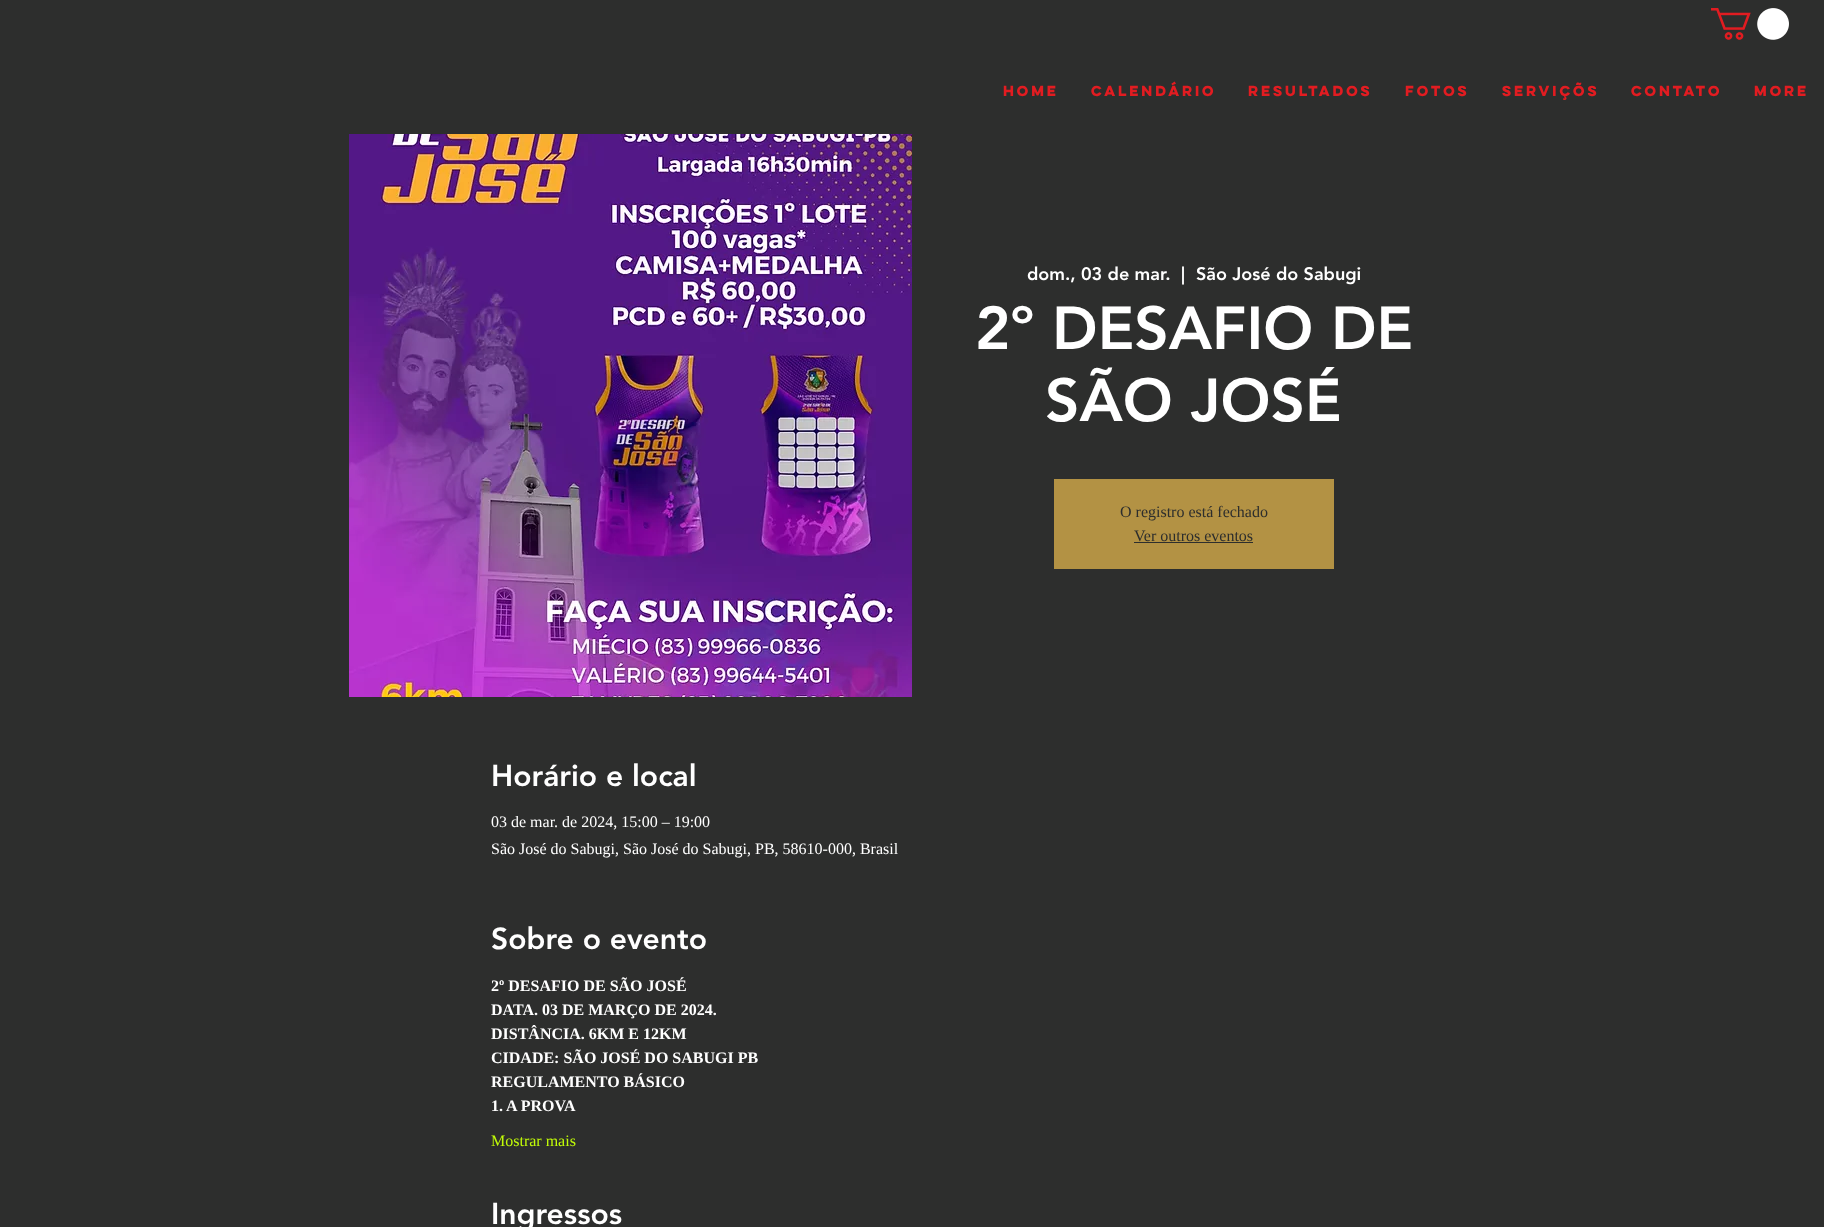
<!DOCTYPE html>
<meta charset="utf-8">
<style>body { margin: 0 } canvas { display: block }</style>
<canvas id="canvas" width="1824" height="1227"></canvas>
<img id="img1" src="img_01.png" hidden>
<img id="img2" src="img_02.png" hidden>
<script>
window.onload = function () {
	const canvas = document.getElementById("canvas");
	const ctx = canvas.getContext("2d");
	ctx.miterLimit = 4;
	ctx.fontKerning = "normal";
	function txt(s, x, y) {
		ctx.fillText(s, x, y);
	}
	function fill(x, y, w, h) {
		ctx.fillRect(x, y, w, h);
	}
	function img(id, x, y, w, h) {
		ctx.drawImage(document.getElementById(id), x, y, w, h);
	}

	ctx.fillStyle = "#2D2E2D";
	fill(0, 0, 1824, 1227);
	img("img1", 1711, 8, 78, 32);
	img("img2", 349, 134, 563, 563);
	ctx.fillStyle = "#B39244";
	fill(1054, 479, 280, 90);
	ctx.fillStyle = "#2D2E2D";
	fill(1134, 542, 119, 1);
	ctx.font = "bold 13px 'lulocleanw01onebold'";
	ctx.fillStyle = "#E21C21";
	txt("HOME", 1003, 96);
	txt("CALENDÁRIO", 1091, 96);
	txt("RESULTADOS", 1248, 96);
	txt("FOTOS", 1405, 96);
	txt("SERVIÇÕS", 1502, 96);
	txt("CONTATO", 1631, 96);
	txt("More", 1754, 96);
	ctx.font = "900 18px 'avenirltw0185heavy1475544'";
	ctx.fillStyle = "#FFFFFF";
	txt("dom., 03 de mar.", 1027, 280);
	txt("|", 1181, 280);
	txt("São José do Sabugi", 1196, 280);
	ctx.font = "900 60px 'avenirltw0185heavy1475544'";
	txt("2º DESAFIO DE", 975, 349);
	txt("SÃO JOSÉ", 1045, 421);
	ctx.font = "16px Liberation Serif";
	ctx.fillStyle = "#2D2E2D";
	txt("O registro está fechado", 1120, 517);
	txt("Ver outros eventos", 1134, 541);
	ctx.font = "900 30px 'avenirltw0185heavy1475544'";
	ctx.fillStyle = "#FFFFFF";
	txt("Horário e local", 491, 786);
	ctx.font = "16px Liberation Serif";
	txt("03 de mar. de 2024, 15:00 – 19:00", 491, 827);
	txt("São José do Sabugi, São José do Sabugi, PB, 58610-000, Brasil", 491, 854);
	ctx.font = "900 30px 'avenirltw0185heavy1475544'";
	txt("Sobre o evento", 491, 949);
	ctx.font = "bold 16px Liberation Serif";
	txt("2º DESAFIO DE SÃO JOSÉ", 491, 991);
	txt("DATA. 03 DE MARÇO DE 2024.", 491, 1015);
	txt("DISTÂNCIA. 6KM E 12KM", 491, 1039);
	txt("CIDADE: SÃO JOSÉ DO SABUGI PB", 491, 1063);
	txt("REGULAMENTO BÁSICO", 491, 1087);
	txt("1. A PROVA", 491, 1111);
	ctx.font = "16px Liberation Serif";
	ctx.fillStyle = "#C1FB08";
	txt("Mostrar mais", 491, 1146);
	ctx.font = "900 30px 'avenirltw0185heavy1475544'";
	ctx.fillStyle = "#FFFFFF";
	txt("Ingressos", 491, 1224);
};
</script>
